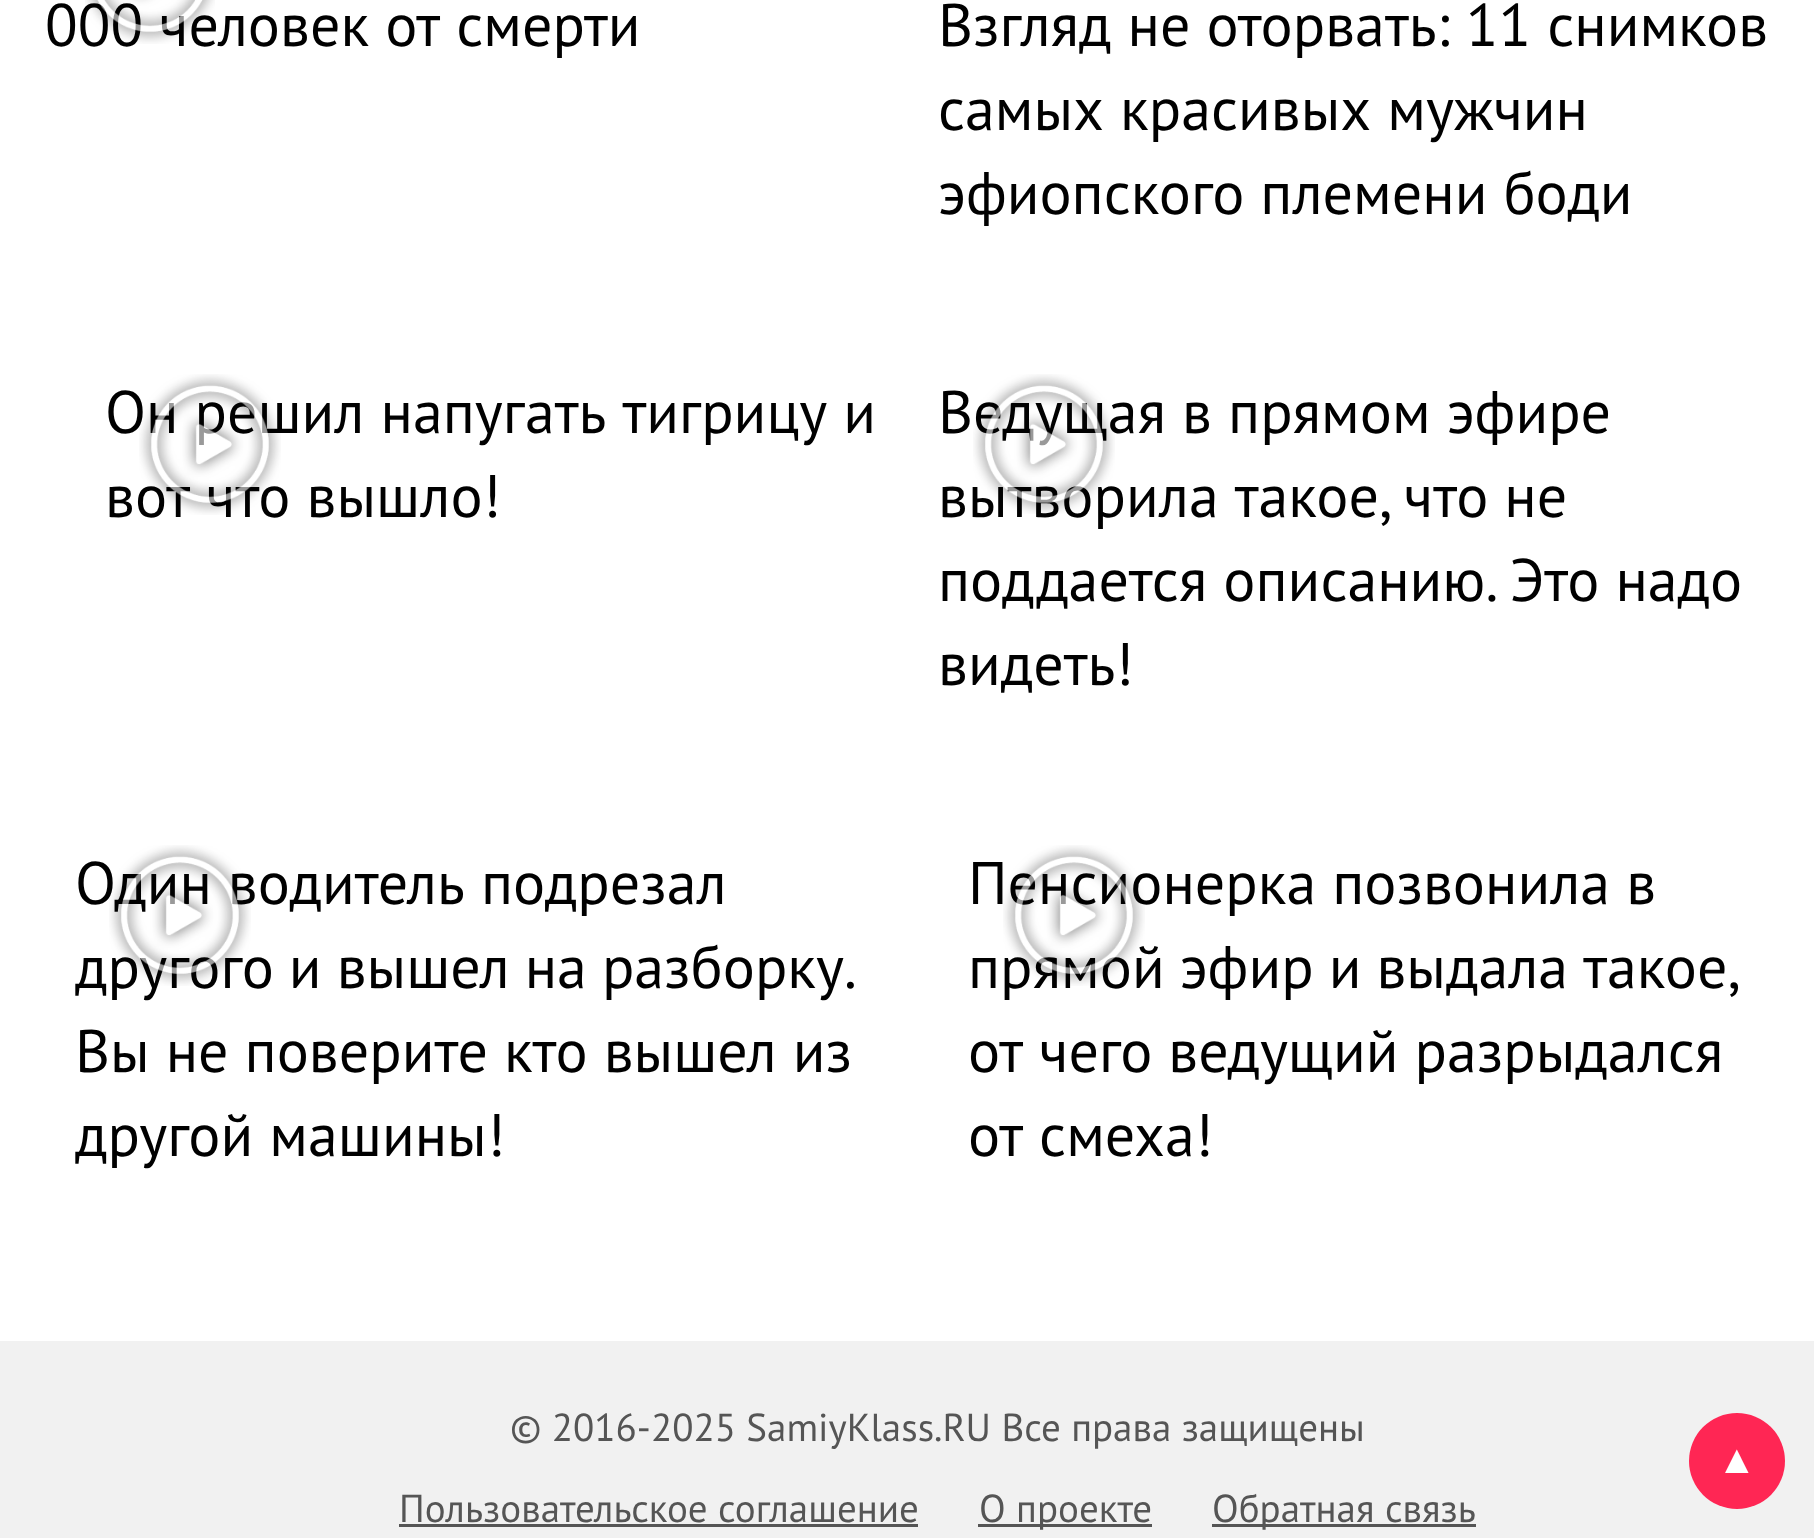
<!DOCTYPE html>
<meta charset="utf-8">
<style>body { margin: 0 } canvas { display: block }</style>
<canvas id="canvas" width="1814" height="1538"></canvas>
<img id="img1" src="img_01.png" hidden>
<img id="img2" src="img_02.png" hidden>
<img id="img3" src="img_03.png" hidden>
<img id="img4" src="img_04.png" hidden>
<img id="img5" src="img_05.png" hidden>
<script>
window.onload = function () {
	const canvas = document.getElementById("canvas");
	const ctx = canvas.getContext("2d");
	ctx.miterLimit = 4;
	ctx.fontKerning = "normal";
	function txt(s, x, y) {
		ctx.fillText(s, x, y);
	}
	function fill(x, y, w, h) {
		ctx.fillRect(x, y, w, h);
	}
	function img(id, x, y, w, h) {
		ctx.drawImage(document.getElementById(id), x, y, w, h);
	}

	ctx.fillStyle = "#FFFFFF";
	fill(0, 0, 1814, 1538);
	ctx.fillStyle = "#F1F1F1";
	fill(0, 1341, 1814, 197);
	ctx.fillStyle = "#555555";
	fill(399, 1524, 519, 3);
	fill(978, 1524, 174, 3);
	fill(1212, 1524, 264, 3);
	ctx.fillStyle = "#FF2654";
	ctx.beginPath();
	ctx.arc(1737, 1461, 48, 0, Math.PI * 2);
	ctx.fill();
	ctx.font = "60px PT Sans";
	ctx.fillStyle = "#000000";
	txt("000 человек от смерти", 45, 46);
	img("img1", 85, 0, 130, 44);
	txt("Взгляд не оторвать: 11 снимков", 938, 46);
	txt("самых красивых мужчин", 938, 130);
	txt("эфиопского племени боди", 938, 214);
	txt("Он решил напугать тигрицу и", 105, 433);
	txt("вот что вышло!", 105, 517);
	img("img2", 139, 374, 142, 141);
	txt("Ведущая в прямом эфире", 938, 433);
	txt("вытворила такое, что не", 938, 517);
	img("img3", 973, 374, 142, 140);
	txt("поддается описанию. Это надо", 938, 601);
	txt("видеть!", 938, 685);
	txt("Один водитель подрезал", 75, 904);
	ctx.wordSpacing = "-1px";
	txt("другого и вышел на разборку.", 75, 988);
	img("img4", 109, 845, 142, 141);
	ctx.wordSpacing = "0px";
	txt("Вы не поверите кто вышел из", 75, 1072);
	txt("другой машины!", 75, 1156);
	txt("Пенсионерка позвонила в", 968, 904);
	ctx.wordSpacing = "-1px";
	txt("прямой эфир и выдала такое,", 968, 988);
	img("img5", 1003, 845, 142, 141);
	ctx.wordSpacing = "0px";
	txt("от чего ведущий разрыдался", 968, 1072);
	txt("от смеха!", 968, 1156);
	ctx.font = "39px PT Sans";
	ctx.fillStyle = "#555555";
	txt("© 2016-2025 SamiyKlass.RU Все права защищены", 510, 1441);
	txt("Пользовательское соглашение", 399, 1522);
	txt("О проекте", 979, 1522);
	txt("Обратная связь", 1212, 1522);
	ctx.font = "40px Liberation Sans";
	ctx.fillStyle = "#FFFFFF";
	txt("▲", 1717, 1473);
};
</script>
